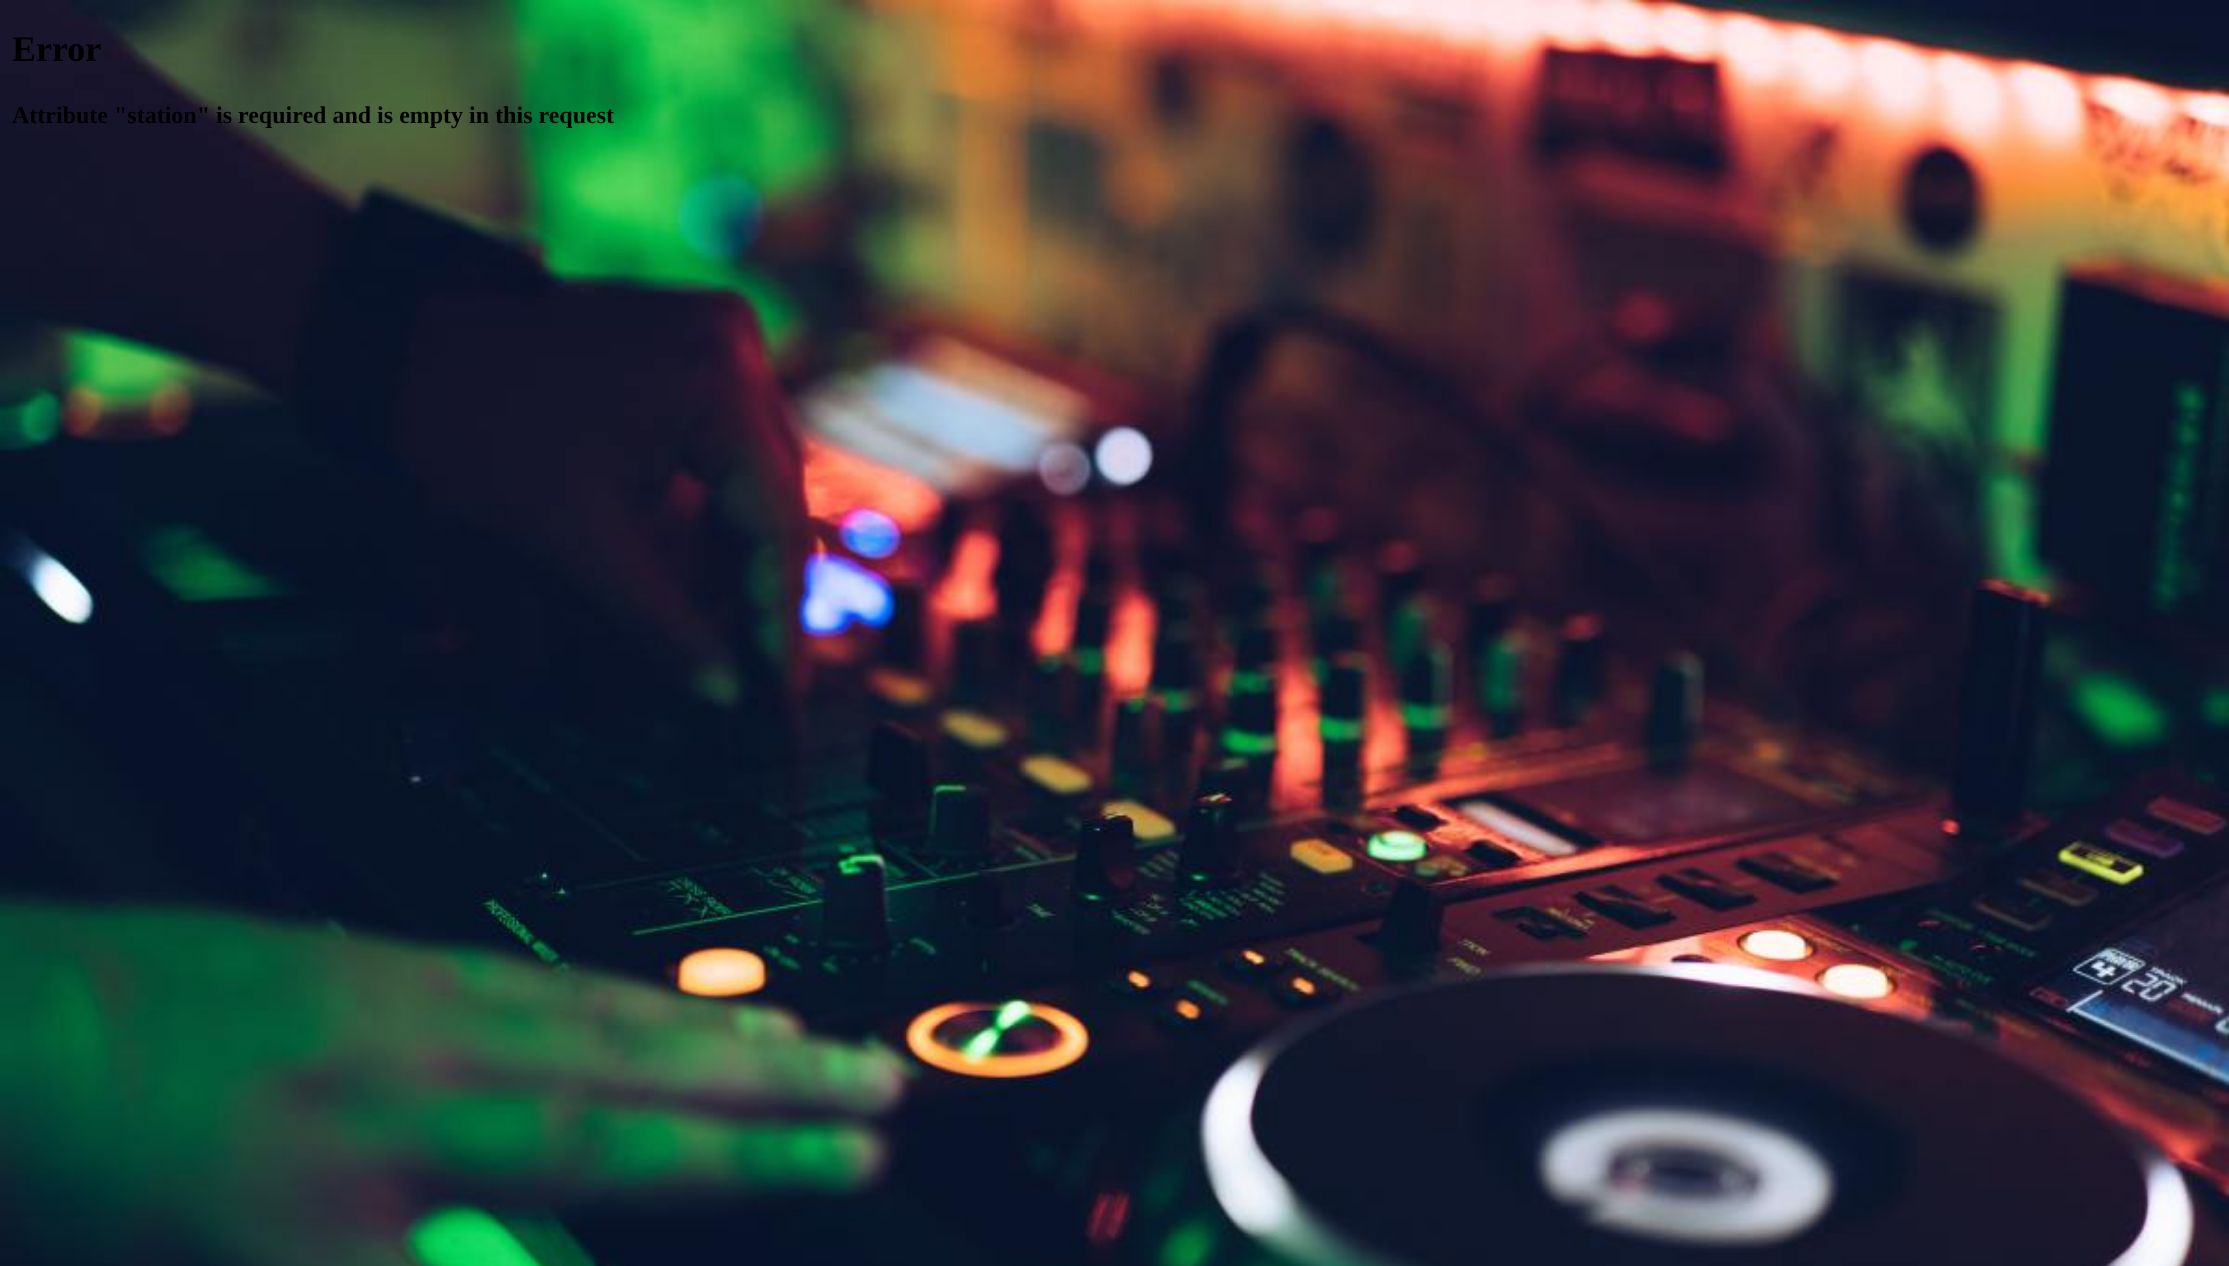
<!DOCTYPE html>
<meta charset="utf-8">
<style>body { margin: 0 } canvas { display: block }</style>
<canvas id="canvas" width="2229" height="1266"></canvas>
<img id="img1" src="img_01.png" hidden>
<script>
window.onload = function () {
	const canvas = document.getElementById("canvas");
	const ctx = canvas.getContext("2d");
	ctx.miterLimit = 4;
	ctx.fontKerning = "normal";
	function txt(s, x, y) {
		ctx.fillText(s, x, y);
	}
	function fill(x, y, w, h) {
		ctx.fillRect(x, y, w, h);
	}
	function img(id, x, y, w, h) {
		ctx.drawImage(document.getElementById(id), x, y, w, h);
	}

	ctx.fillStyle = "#FFFFFF";
	fill(0, 0, 2229, 1266);
	img("img1", 0, 0, 2229, 1266);
	ctx.font = "bold 36px Liberation Serif";
	ctx.fillStyle = "#000000";
	txt("Error", 12, 61);
	ctx.font = "bold 24px Liberation Serif";
	txt("Attribute \"station\" is required and is empty in this request", 12, 123);
};
</script>
